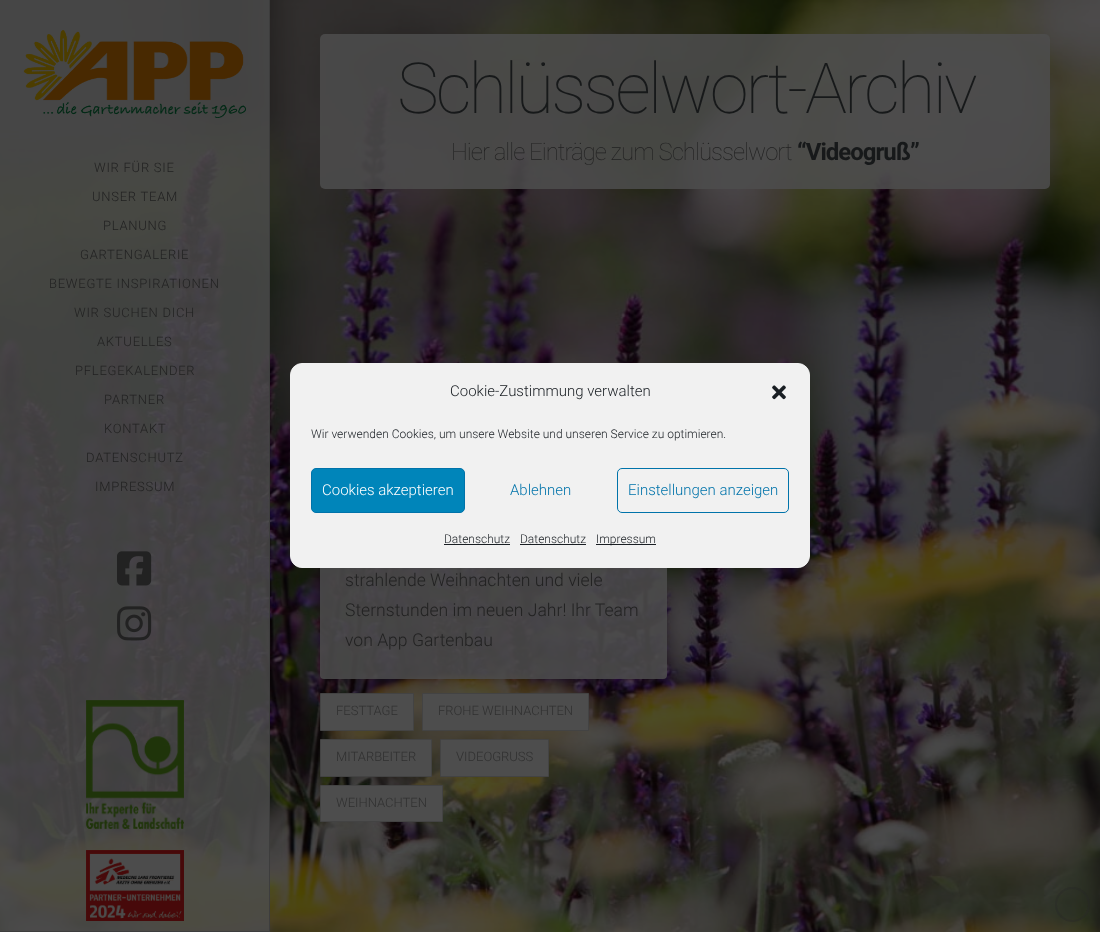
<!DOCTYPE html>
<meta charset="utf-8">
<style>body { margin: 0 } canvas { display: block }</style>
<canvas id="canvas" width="1100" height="932"></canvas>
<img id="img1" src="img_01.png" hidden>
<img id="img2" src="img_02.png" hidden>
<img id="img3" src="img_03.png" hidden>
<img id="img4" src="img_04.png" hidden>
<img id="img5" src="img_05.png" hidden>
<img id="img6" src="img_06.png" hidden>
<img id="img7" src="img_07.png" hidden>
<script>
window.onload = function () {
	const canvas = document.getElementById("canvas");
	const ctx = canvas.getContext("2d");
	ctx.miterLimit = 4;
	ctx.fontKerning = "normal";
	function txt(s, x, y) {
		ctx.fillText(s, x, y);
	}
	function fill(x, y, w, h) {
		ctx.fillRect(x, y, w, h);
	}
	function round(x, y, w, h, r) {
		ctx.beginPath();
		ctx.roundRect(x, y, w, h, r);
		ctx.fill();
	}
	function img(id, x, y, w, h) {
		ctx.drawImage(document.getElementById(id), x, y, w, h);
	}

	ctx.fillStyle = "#FFFFFF";
	fill(0, 0, 1100, 932);
	img("img1", 0, 0, 1100, 932);
	ctx.fillStyle = "rgba(77, 77, 77, 0.87)";
	round(320, 34, 730, 155, 5);
	ctx.fillStyle = "rgba(77, 77, 77, 0.82)";
	fill(0, 0, 269, 931);
	ctx.fillStyle = "#3D3D3D";
	fill(269, 0, 1, 932);
	fill(0, 931, 270, 1);
	img("img2", 23, 30, 223, 88);
	img("img3", 117, 551, 35, 35);
	img("img4", 117, 606, 35, 35);
	img("img5", 86, 700, 98, 129);
	img("img6", 86, 850, 98, 71);
	ctx.fillStyle = "rgba(77, 77, 77, 0.87)";
	ctx.beginPath();
	ctx.roundRect(320, 425, 347, 254, [0, 0, 4, 4]);
	ctx.fill();
	ctx.fillStyle = "#4D4D4D";
	ctx.beginPath();
	ctx.rect(320.5, 693.5, 93, 37);
	ctx.fill();
	ctx.strokeStyle = "#434343";
	ctx.stroke();
	ctx.beginPath();
	ctx.rect(422.5, 693.5, 166, 37);
	ctx.fill();
	ctx.stroke();
	ctx.beginPath();
	ctx.rect(320.5, 739.5, 111, 37);
	ctx.fill();
	ctx.stroke();
	ctx.beginPath();
	ctx.rect(440.5, 739.5, 108, 37);
	ctx.fill();
	ctx.stroke();
	ctx.beginPath();
	ctx.rect(320.5, 785.5, 122, 36);
	ctx.fill();
	ctx.stroke();
	ctx.beginPath();
	ctx.arc(1072.5, 904.5, 16.5, 0, Math.PI * 2);
	ctx.strokeStyle = "rgba(39, 39, 39, 0.38)";
	ctx.lineWidth = 2;
	ctx.stroke();
	ctx.fillStyle = "#F1F1F1";
	ctx.beginPath();
	ctx.roundRect(290.5, 363.5, 519, 204, 11.5);
	ctx.fill();
	ctx.strokeStyle = "#F1F1F1";
	ctx.lineWidth = 1;
	ctx.stroke();
	img("img7", 772, 385, 14, 15);
	ctx.fillStyle = "#0085BA";
	ctx.beginPath();
	ctx.roundRect(311.5, 468.5, 153, 44, 4.5);
	ctx.fill();
	ctx.strokeStyle = "#0073AA";
	ctx.stroke();
	ctx.beginPath();
	ctx.roundRect(617.5, 468.5, 171, 44, 4.5);
	ctx.stroke();
	ctx.fillStyle = "#191E23";
	fill(444, 544, 66, 1);
	fill(520, 544, 66, 1);
	fill(596, 544, 60, 1);
	ctx.letterSpacing = "-3px";
	ctx.font = "100 70.5px Roboto";
	ctx.fillStyle = "#17191A";
	txt("Schlüsselwort-Archiv", 397, 113);
	ctx.letterSpacing = "-1px";
	ctx.font = "100 24px Roboto";
	ctx.fillStyle = "#222222";
	txt("Hier alle Einträge zum Schlüsselwort", 451, 160);
	ctx.font = "bold 24px Roboto";
	ctx.fillStyle = "#17191A";
	txt("“Videogruß”", 797, 160);
	ctx.letterSpacing = "0.75px";
	ctx.font = "300 13px Roboto";
	ctx.fillStyle = "#222222";
	txt("WIR FÜR SIE", 94, 172);
	txt("UNSER TEAM", 92, 201);
	txt("PLANUNG", 103, 230);
	txt("GARTENGALERIE", 80, 259);
	txt("BEWEGTE INSPIRATIONEN", 49, 288);
	txt("WIR SUCHEN DICH", 74, 317);
	txt("AKTUELLES", 97, 346);
	txt("PFLEGEKALENDER", 75, 375);
	txt("PARTNER", 104, 404);
	txt("KONTAKT", 104, 433);
	txt("DATENSCHUTZ", 86, 462);
	txt("IMPRESSUM", 95, 491);
	ctx.letterSpacing = "0px";
	ctx.font = "300 17.6px Roboto";
	txt("strahlende Weihnachten und viele", 345, 586);
	txt("Sternstunden im neuen Jahr! Ihr Team", 345, 616);
	txt("von App Gartenbau", 345, 646);
	ctx.font = "300 13px Roboto";
	ctx.fillStyle = "#303030";
	txt("FESTTAGE", 336, 715);
	txt("FROHE WEIHNACHTEN", 438, 715);
	txt("MITARBEITER", 336, 761);
	txt("VIDEOGRUSS", 456, 761);
	txt("WEIHNACHTEN", 336, 807);
	ctx.font = "300 15px Roboto";
	ctx.fillStyle = "#191E23";
	txt("Cookie-Zustimmung verwalten", 450, 396);
	ctx.font = "300 12px Roboto";
	txt("Wir verwenden Cookies, um unsere Website und unseren Service zu optimieren.", 311, 438);
	ctx.font = "300 15px Roboto";
	ctx.fillStyle = "#FFFFFF";
	txt("Cookies akzeptieren", 322, 495);
	ctx.fillStyle = "#0073AA";
	txt("Ablehnen", 510, 495);
	txt("Einstellungen anzeigen", 628, 495);
	ctx.font = "300 12px Roboto";
	ctx.fillStyle = "#191E23";
	txt("Datenschutz", 444, 543);
	txt("Datenschutz", 520, 543);
	txt("Impressum", 596, 543);
};
</script>
